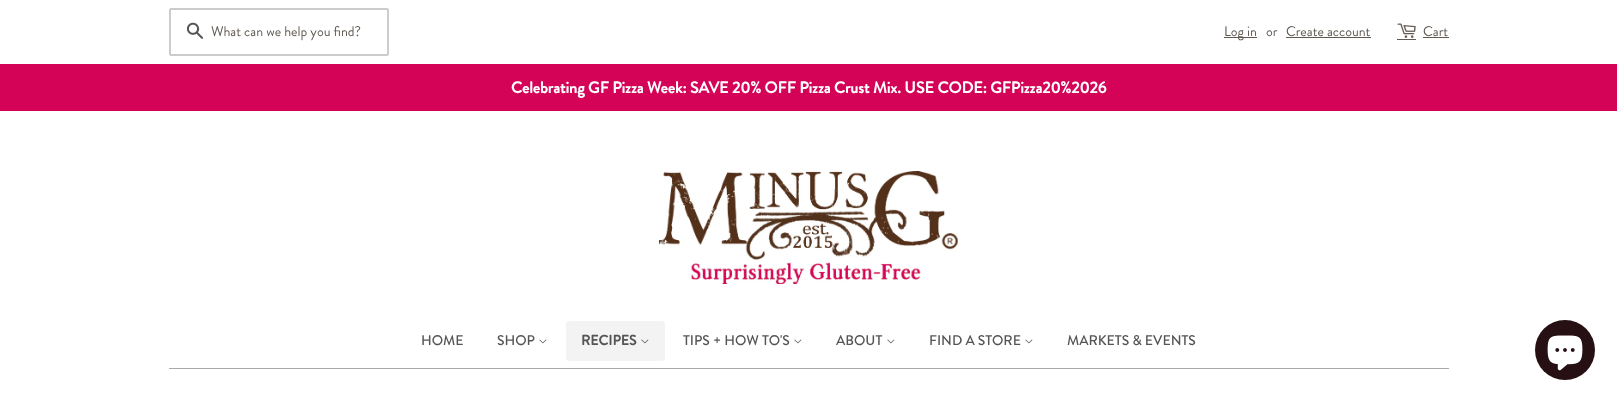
<!DOCTYPE html>
<meta charset="utf-8">
<style>body { margin: 0 } canvas { display: block }</style>
<canvas id="canvas" width="1617" height="401"></canvas>
<img id="img1" src="img_01.png" hidden>
<img id="img2" src="img_02.png" hidden>
<img id="img3" src="img_03.png" hidden>
<img id="img4" src="img_04.png" hidden>
<img id="img5" src="img_05.png" hidden>
<img id="img6" src="img_06.png" hidden>
<script>
window.onload = function () {
	const canvas = document.getElementById("canvas");
	const ctx = canvas.getContext("2d");
	ctx.miterLimit = 4;
	ctx.fontKerning = "normal";
	function txt(s, x, y) {
		ctx.fillText(s, x, y);
	}
	function fill(x, y, w, h) {
		ctx.fillRect(x, y, w, h);
	}
	function round(x, y, w, h, r) {
		ctx.beginPath();
		ctx.roundRect(x, y, w, h, r);
		ctx.fill();
	}
	function img(id, x, y, w, h) {
		ctx.drawImage(document.getElementById(id), x, y, w, h);
	}

	ctx.fillStyle = "#FFFFFF";
	fill(0, 0, 1617, 401);
	ctx.beginPath();
	ctx.roundRect(170, 9, 218, 46, 1);
	ctx.strokeStyle = "#CCCCCC";
	ctx.lineWidth = 2;
	ctx.stroke();
	img("img1", 186, 22, 18, 17);
	ctx.fillStyle = "#615A53";
	fill(1224, 37, 33, 1);
	fill(1286, 37, 85, 1);
	img("img2", 1397, 23, 19, 15);
	fill(1397, 39, 19, 1);
	fill(1423, 37, 26, 1);
	ctx.fillStyle = "#D40357";
	fill(0, 64, 1617, 47);
	img("img3", 659, 171, 299, 113);
	ctx.fillStyle = "#AAAAAA";
	fill(169, 368, 1280, 1);
	img("img4", 539, 339, 8, 5);
	ctx.fillStyle = "#F3F3F3";
	round(566, 321, 99, 40, 3);
	img("img5", 641, 339, 8, 5);
	img("img4", 794, 339, 8, 5);
	img("img4", 887, 339, 8, 5);
	img("img4", 1025, 339, 8, 5);
	ctx.fillStyle = "#271013";
	ctx.beginPath();
	ctx.arc(1565, 350, 30, 0, Math.PI * 2);
	ctx.fill();
	img("img6", 1547, 335, 36, 36);
	ctx.font = "14px Brandon Grotesque";
	ctx.fillStyle = "#615A53";
	txt("What can we help you find?", 211, 36);
	txt("Log in", 1224, 36);
	txt("or", 1266, 36);
	txt("Create account", 1286, 36);
	txt("Cart", 1423, 36);
	ctx.font = "bold 16px Brandon Grotesque";
	ctx.fillStyle = "#FFFFFF";
	txt("Celebrating GF Pizza Week: SAVE 20% OFF Pizza Crust Mix. USE CODE: GFPizza20%2026", 511, 93);
	ctx.font = "500 14px Brandon Grotesque";
	ctx.fillStyle = "#555555";
	txt("HOME", 421, 345);
	txt("SHOP", 497, 345);
	ctx.font = "bold 14px Brandon Grotesque";
	txt("RECIPES", 581, 345);
	ctx.font = "500 14px Brandon Grotesque";
	txt("TIPS + HOW TO'S", 683, 345);
	txt("ABOUT", 836, 345);
	txt("FIND A STORE", 929, 345);
	txt("MARKETS & EVENTS", 1067, 345);
};
</script>
